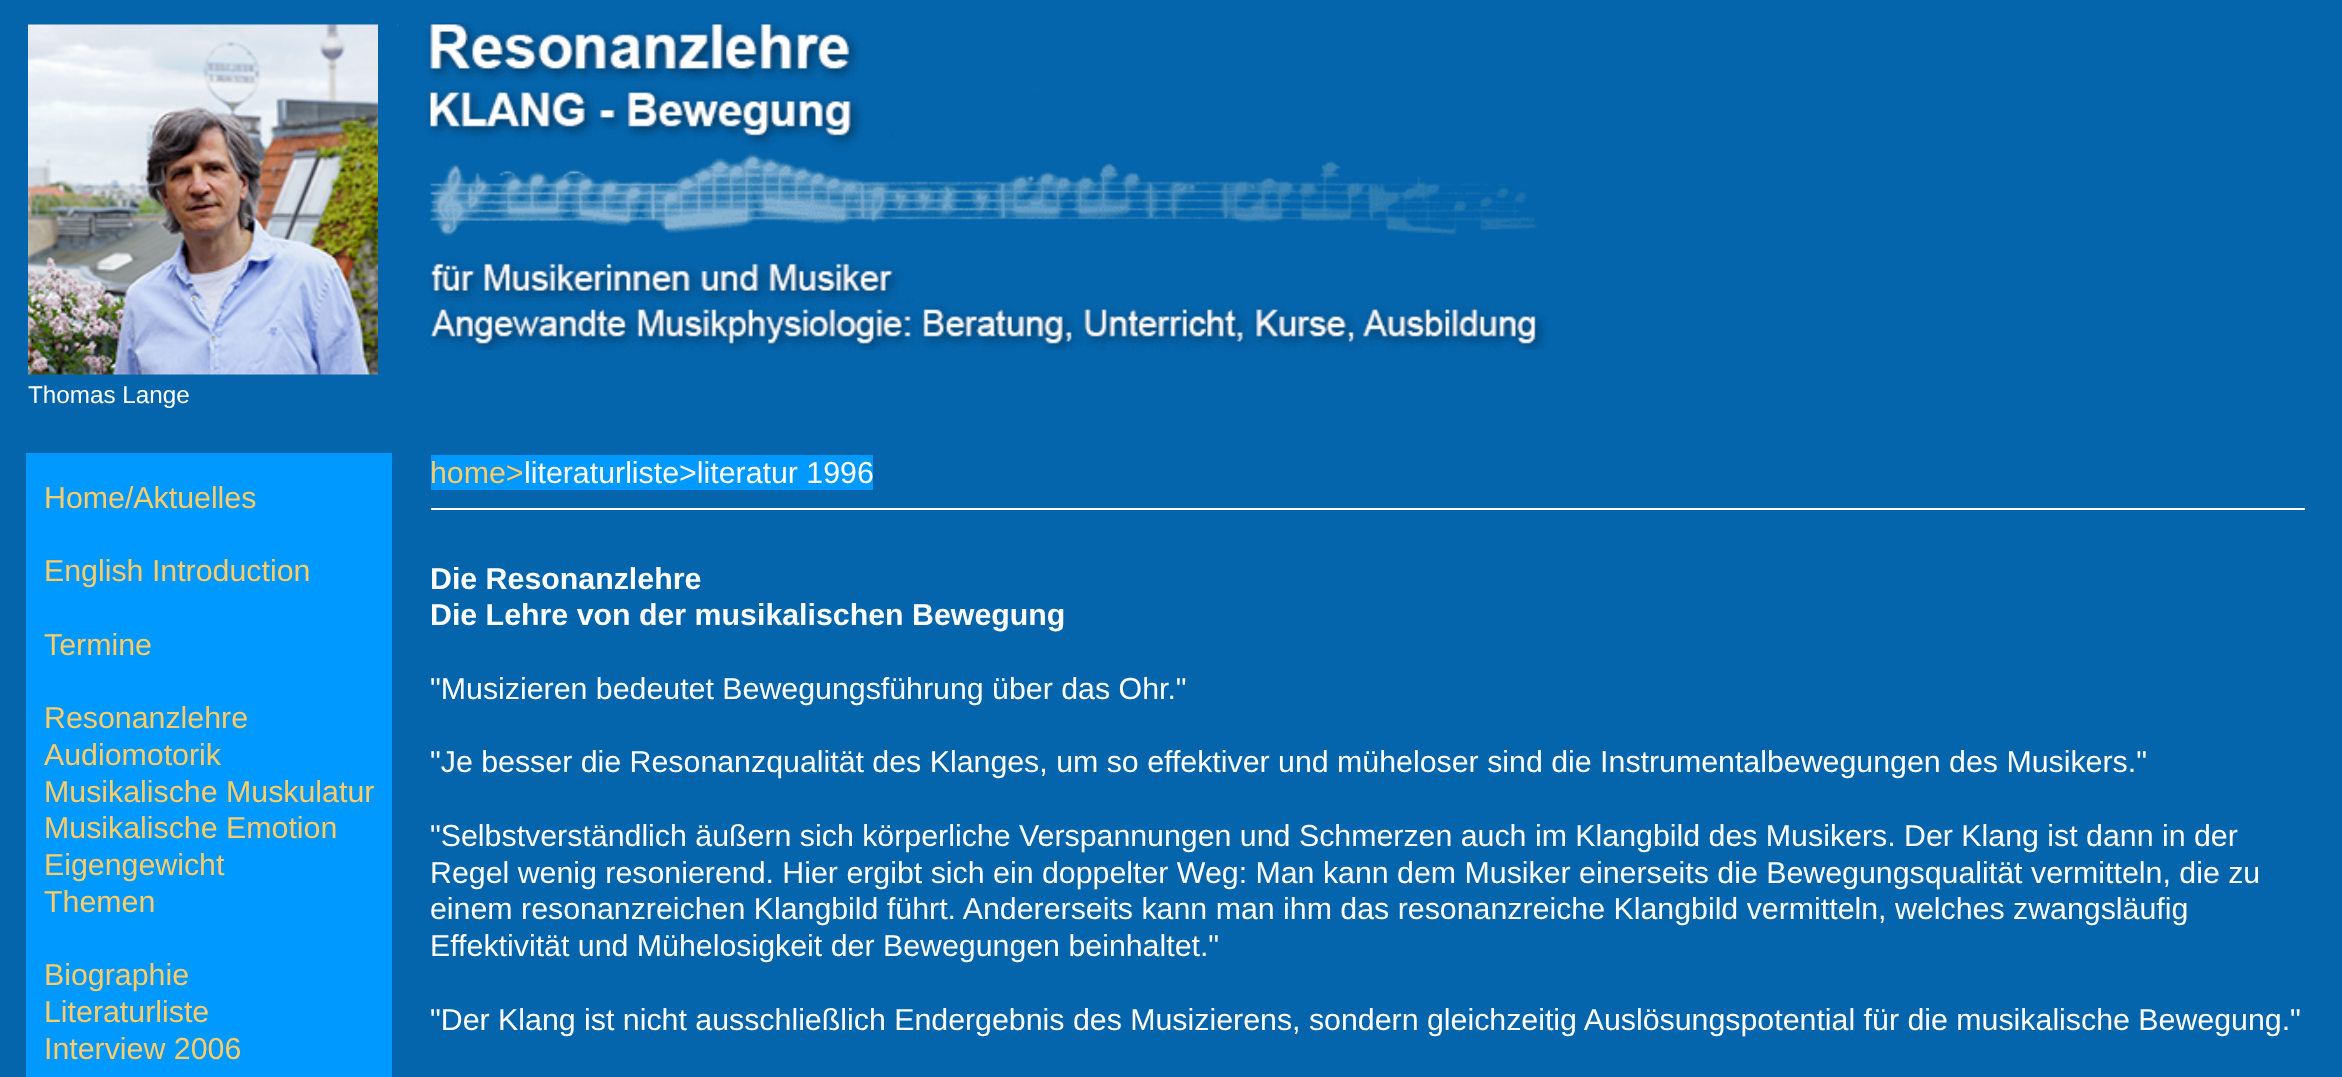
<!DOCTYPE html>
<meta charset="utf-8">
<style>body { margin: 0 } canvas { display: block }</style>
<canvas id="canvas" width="2342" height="1077"></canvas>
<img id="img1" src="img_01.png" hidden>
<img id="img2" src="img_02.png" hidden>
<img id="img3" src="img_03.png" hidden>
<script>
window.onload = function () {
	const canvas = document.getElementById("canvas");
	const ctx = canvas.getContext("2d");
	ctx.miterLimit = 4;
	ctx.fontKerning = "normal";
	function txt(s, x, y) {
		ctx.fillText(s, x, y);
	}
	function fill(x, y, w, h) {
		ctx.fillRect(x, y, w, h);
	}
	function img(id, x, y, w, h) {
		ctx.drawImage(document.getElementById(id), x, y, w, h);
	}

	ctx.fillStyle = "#0465AC";
	fill(0, 0, 2342, 1077);
	img("img1", 424, 22, 1124, 328);
	img("img2", 397, 24, 1, 3);
	img("img3", 28, 24, 350, 351);
	ctx.fillStyle = "#0099FF";
	fill(26, 453, 366, 624);
	fill(431, 455, 442, 35);
	ctx.fillStyle = "#FFFFFF";
	fill(431, 508, 1874, 2);
	ctx.font = "24.25px Liberation Sans";
	txt("Thomas Lange", 28, 403);
	ctx.font = "30.33px Liberation Sans";
	ctx.fillStyle = "#FFCC66";
	txt("Home/Aktuelles", 44, 508);
	txt("English Introduction", 44, 581);
	txt("Termine", 44, 655);
	txt("Resonanzlehre", 44, 728);
	txt("Audiomotorik", 44, 765);
	txt("Musikalische Muskulatur", 44, 802);
	txt("Musikalische Emotion", 44, 838);
	txt("Eigengewicht", 44, 875);
	txt("Themen", 44, 912);
	txt("Biographie", 44, 985);
	txt("Literaturliste", 44, 1022);
	txt("Interview 2006", 44, 1059);
	txt("home>", 430, 483);
	ctx.fillStyle = "#FFFFFF";
	txt("literaturliste>literatur 1996", 524, 483);
	ctx.font = "bold 30.33px Liberation Sans";
	txt("Die Resonanzlehre", 430, 589);
	txt("Die Lehre von der musikalischen Bewegung", 430, 625);
	ctx.font = "30.33px Liberation Sans";
	txt("\"Musizieren bedeutet Bewegungsführung über das Ohr.\"", 430, 699);
	txt("\"Je besser die Resonanzqualität des Klanges, um so effektiver und müheloser sind die Instrumentalbewegungen des Musikers.\"", 430, 772);
	txt("\"Selbstverständlich äußern sich körperliche Verspannungen und Schmerzen auch im Klangbild des Musikers. Der Klang ist dann in der", 430, 846);
	txt("Regel wenig resonierend. Hier ergibt sich ein doppelter Weg: Man kann dem Musiker einerseits die Bewegungsqualität vermitteln, die zu", 430, 883);
	txt("einem resonanzreichen Klangbild führt. Andererseits kann man ihm das resonanzreiche Klangbild vermitteln, welches zwangsläufig", 430, 919);
	txt("Effektivität und Mühelosigkeit der Bewegungen beinhaltet.\"", 430, 956);
	txt("\"Der Klang ist nicht ausschließlich Endergebnis des Musizierens, sondern gleichzeitig Auslösungspotential für die musikalische Bewegung.\"", 430, 1030);
};
</script>
